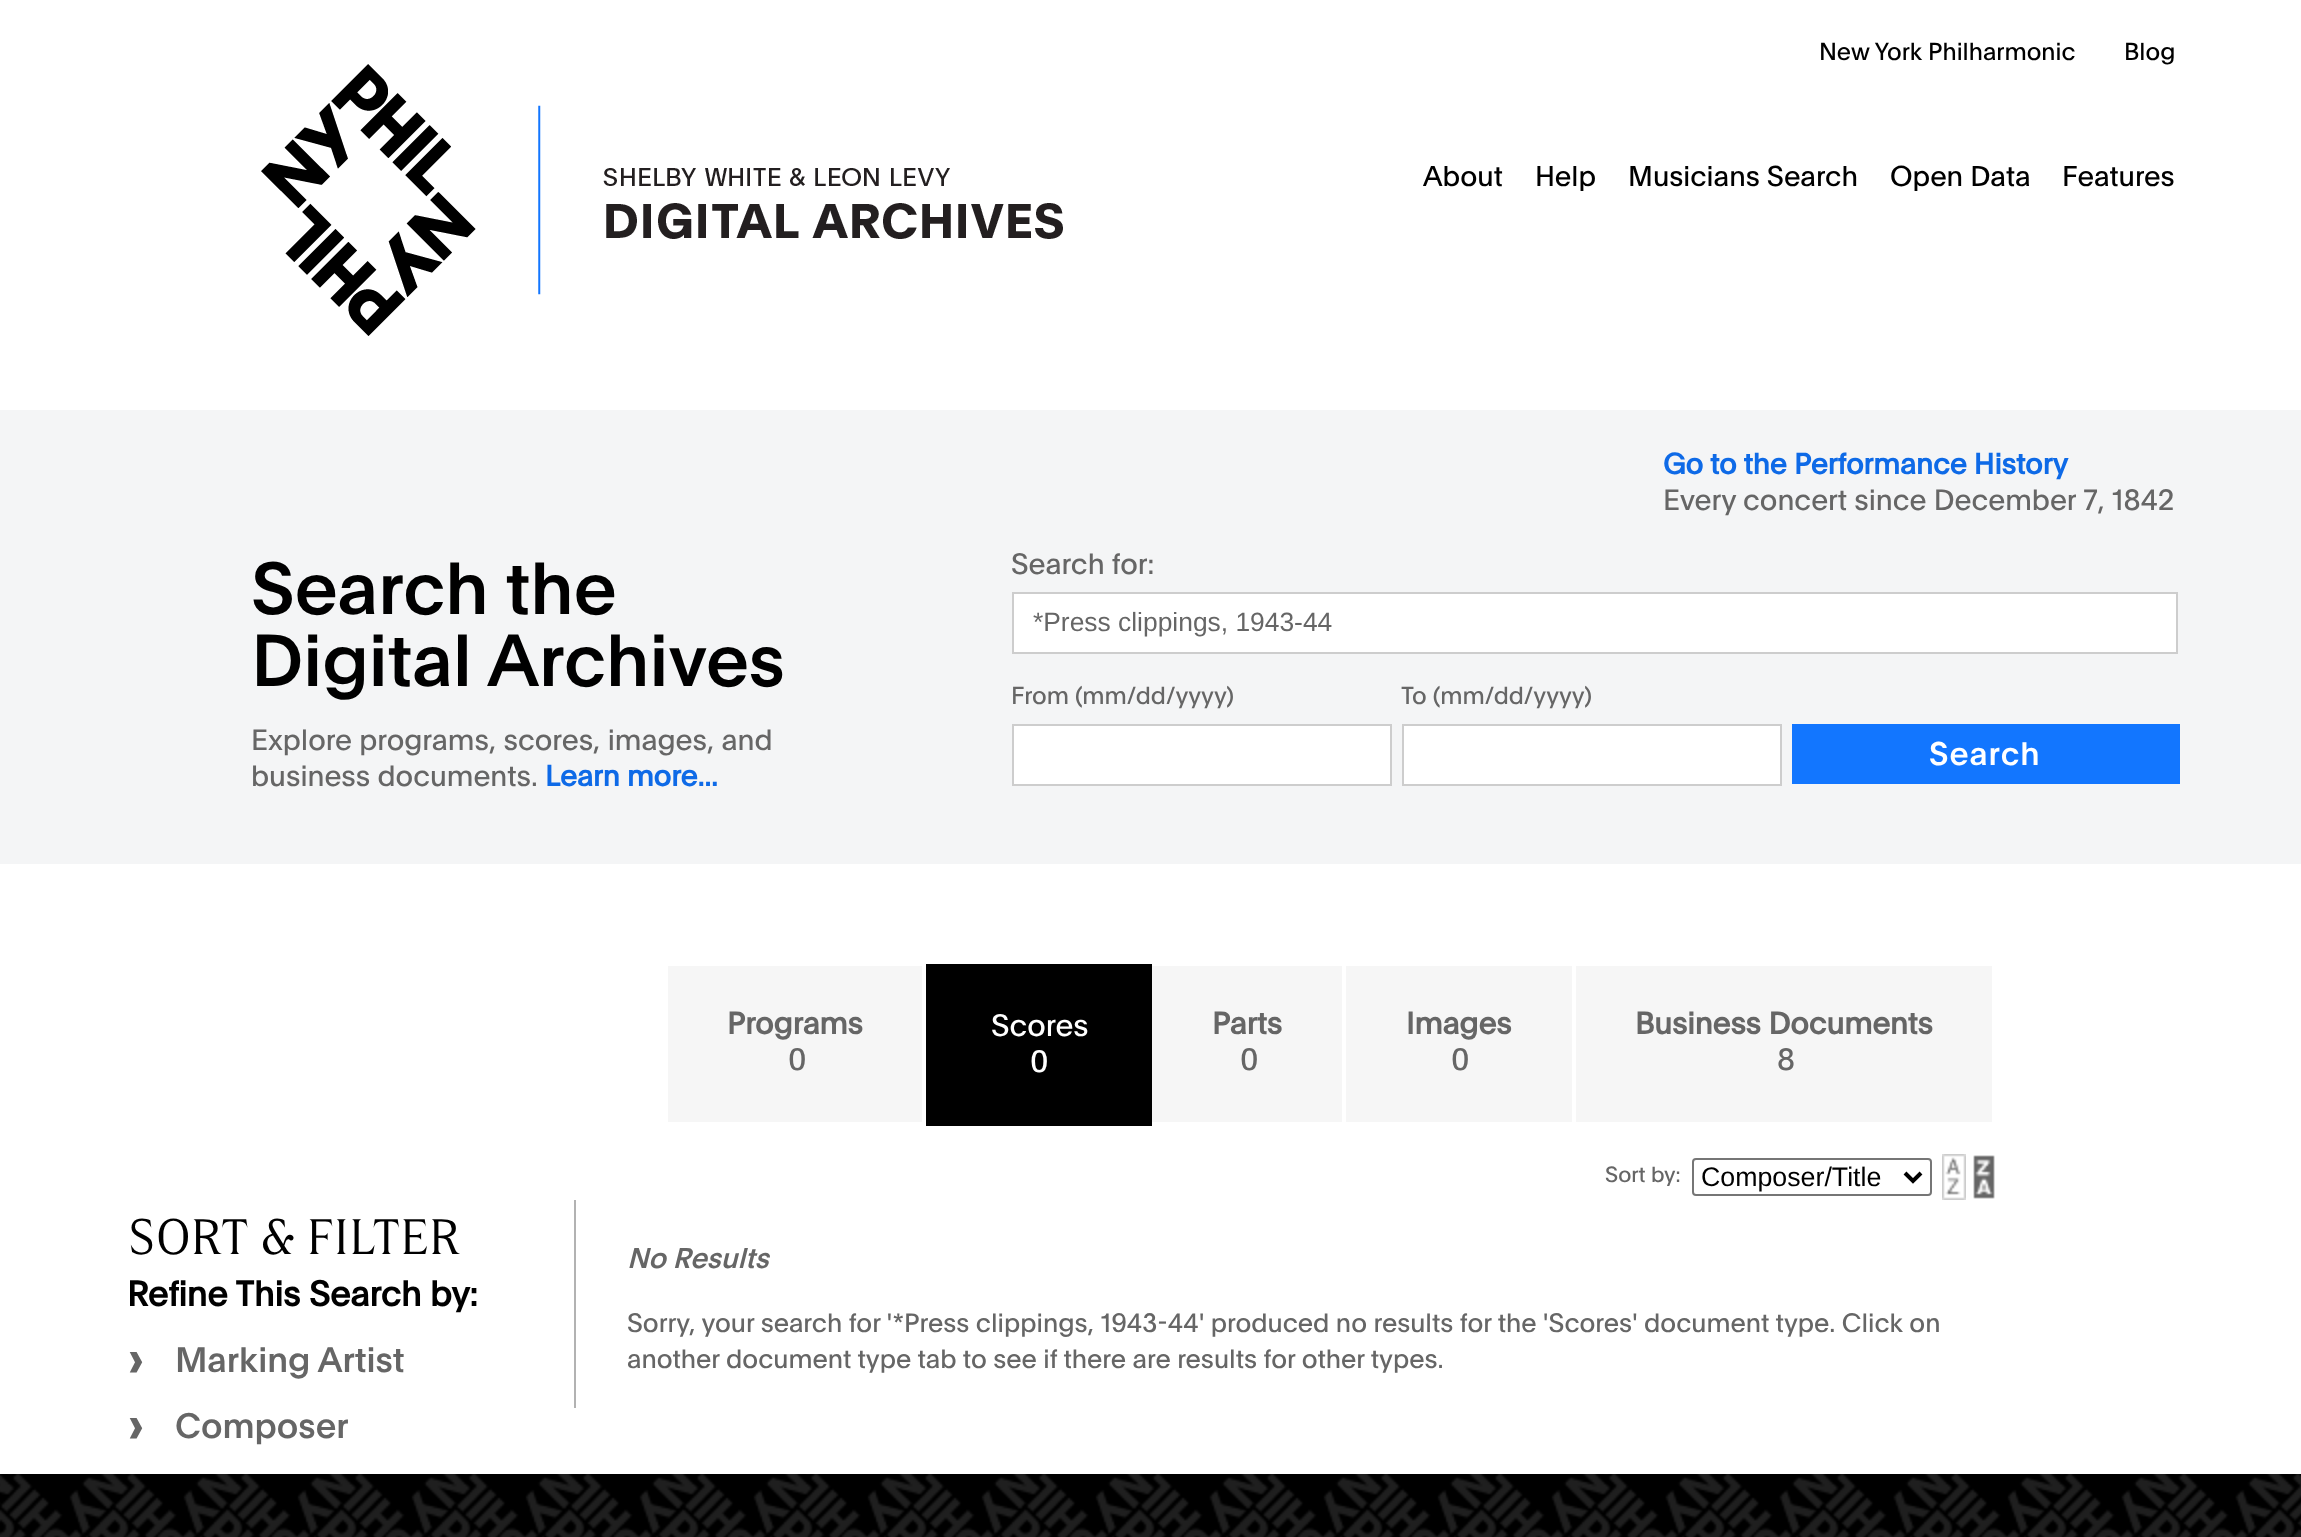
<!DOCTYPE html>
<meta charset="utf-8">
<style>body { margin: 0 } canvas { display: block }</style>
<canvas id="canvas" width="2301" height="1537"></canvas>
<img id="img1" src="img_01.png" hidden>
<img id="img2" src="img_02.png" hidden>
<img id="img3" src="img_03.png" hidden>
<img id="img4" src="img_04.png" hidden>
<script>
window.onload = function () {
	const canvas = document.getElementById("canvas");
	const ctx = canvas.getContext("2d");
	ctx.miterLimit = 4;
	ctx.fontKerning = "normal";
	function txt(s, x, y) {
		ctx.fillText(s, x, y);
	}
	function fill(x, y, w, h) {
		ctx.fillRect(x, y, w, h);
	}
	function img(id, x, y, w, h) {
		ctx.drawImage(document.getElementById(id), x, y, w, h);
	}

	ctx.fillStyle = "#FFFFFF";
	fill(0, 0, 2301, 1537);
	img("img1", 261, 64, 802, 272);
	ctx.fillStyle = "#F4F5F6";
	fill(0, 410, 2301, 454);
	ctx.fillStyle = "#FFFFFF";
	ctx.beginPath();
	ctx.rect(1013, 593, 1164, 60);
	ctx.fill();
	ctx.strokeStyle = "#CDCDCD";
	ctx.lineWidth = 2;
	ctx.stroke();
	ctx.beginPath();
	ctx.rect(1013, 725, 378, 60);
	ctx.fill();
	ctx.stroke();
	ctx.beginPath();
	ctx.rect(1403, 725, 378, 60);
	ctx.fill();
	ctx.stroke();
	ctx.fillStyle = "#1276FF";
	fill(1792, 724, 388, 60);
	ctx.fillStyle = "#F6F6F6";
	fill(668, 966, 254, 156);
	ctx.fillStyle = "#000000";
	fill(926, 964, 226, 162);
	ctx.fillStyle = "#F6F6F6";
	fill(1152, 966, 190, 156);
	fill(1346, 966, 226, 156);
	fill(1576, 966, 416, 156);
	ctx.beginPath();
	ctx.roundRect(1693, 1159, 238, 36, 3);
	ctx.strokeStyle = "#767676";
	ctx.stroke();
	ctx.beginPath();
	ctx.moveTo(1905, 1173);
	ctx.lineTo(1913, 1181);
	ctx.lineTo(1921, 1173);
	ctx.strokeStyle = "#000000";
	ctx.lineWidth = 4;
	ctx.stroke();
	img("img2", 1942, 1154, 24, 46);
	img("img3", 1973, 1155, 22, 44);
	ctx.fillStyle = "#B2B2B2";
	fill(574, 1200, 2, 208);
	ctx.fillStyle = "#000000";
	fill(0, 1474, 2301, 63);
	img("img4", 0, 1474, 2301, 63);
	ctx.font = "24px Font";
	txt("New York Philharmonic", 1819, 60);
	txt("Blog", 2124, 60);
	ctx.font = "28px Font";
	txt("About", 1423, 186);
	txt("Help", 1535, 186);
	txt("Musicians Search", 1628, 186);
	txt("Open Data", 1890, 186);
	txt("Features", 2062, 186);
	ctx.font = "bold 28.75px Font";
	ctx.fillStyle = "#0E6AE7";
	txt("Go to the Performance History", 1663, 474);
	ctx.font = "28.75px Font";
	ctx.fillStyle = "#666666";
	txt("Every concert since December 7, 1842", 1663, 510);
	ctx.font = "500 72px Font";
	ctx.fillStyle = "#000000";
	txt("Search the", 251, 614);
	txt("Digital Archives", 251, 686);
	ctx.font = "28.75px Font";
	ctx.fillStyle = "#666666";
	txt("Explore programs, scores, images, and", 251, 750);
	txt("business documents.", 251, 786);
	ctx.font = "bold 28.75px Font";
	ctx.fillStyle = "#0E6AE7";
	txt("Learn more...", 545, 786);
	ctx.font = "28.75px Font";
	ctx.fillStyle = "#666666";
	txt("Search for:", 1011, 574);
	ctx.font = "26.4px Liberation Sans";
	txt("*Press clippings, 1943-44", 1033, 631);
	ctx.font = "24px Font";
	txt("From (mm/dd/yyyy)", 1011, 704);
	txt("To (mm/dd/yyyy)", 1401, 704);
	ctx.letterSpacing = "1px";
	ctx.font = "500 32px Font";
	ctx.fillStyle = "#FFFFFF";
	txt("Search", 1929, 765);
	ctx.letterSpacing = "0px";
	ctx.font = "bold 30.25px Font";
	ctx.fillStyle = "#666666";
	txt("Programs", 727, 1034);
	ctx.font = "30.25px Font";
	txt("0", 788, 1070);
	ctx.fillStyle = "#FFFFFF";
	txt("Scores", 991, 1036);
	txt("0", 1030, 1072);
	ctx.font = "bold 30.25px Font";
	ctx.fillStyle = "#666666";
	txt("Parts", 1212, 1034);
	ctx.font = "30.25px Font";
	txt("0", 1240, 1070);
	ctx.font = "bold 30.25px Font";
	txt("Images", 1406, 1034);
	ctx.font = "30.25px Font";
	txt("0", 1451, 1070);
	ctx.font = "bold 30.25px Font";
	txt("Business Documents", 1635, 1034);
	ctx.font = "30.25px Font";
	txt("8", 1777, 1070);
	ctx.font = "21.5px Font";
	txt("Sort by:", 1605, 1182);
	ctx.font = "26.75px Liberation Sans";
	ctx.fillStyle = "#000000";
	txt("Composer/Title", 1701, 1186);
	ctx.font = "300 54px 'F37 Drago'";
	txt("SORT & FILTER", 127, 1254);
	ctx.font = "bold 34.5px Font";
	txt("Refine This Search by:", 127, 1306);
	ctx.font = "500 55px Font";
	ctx.fillStyle = "#666666";
	txt("›", 127, 1378);
	ctx.font = "500 34.5px Font";
	txt("Marking Artist", 175, 1372);
	ctx.font = "500 55px Font";
	txt("›", 127, 1444);
	ctx.font = "500 34.5px Font";
	txt("Composer", 175, 1438);
	ctx.font = "italic 500 28px Font";
	txt("No Results", 627, 1268);
	ctx.font = "25.92px Font";
	txt("Sorry, your search for '*Press clippings, 1943-44' produced no results for the 'Scores' document type. Click on", 627, 1332);
	txt("another document type tab to see if there are results for other types.", 627, 1368);
};
</script>
